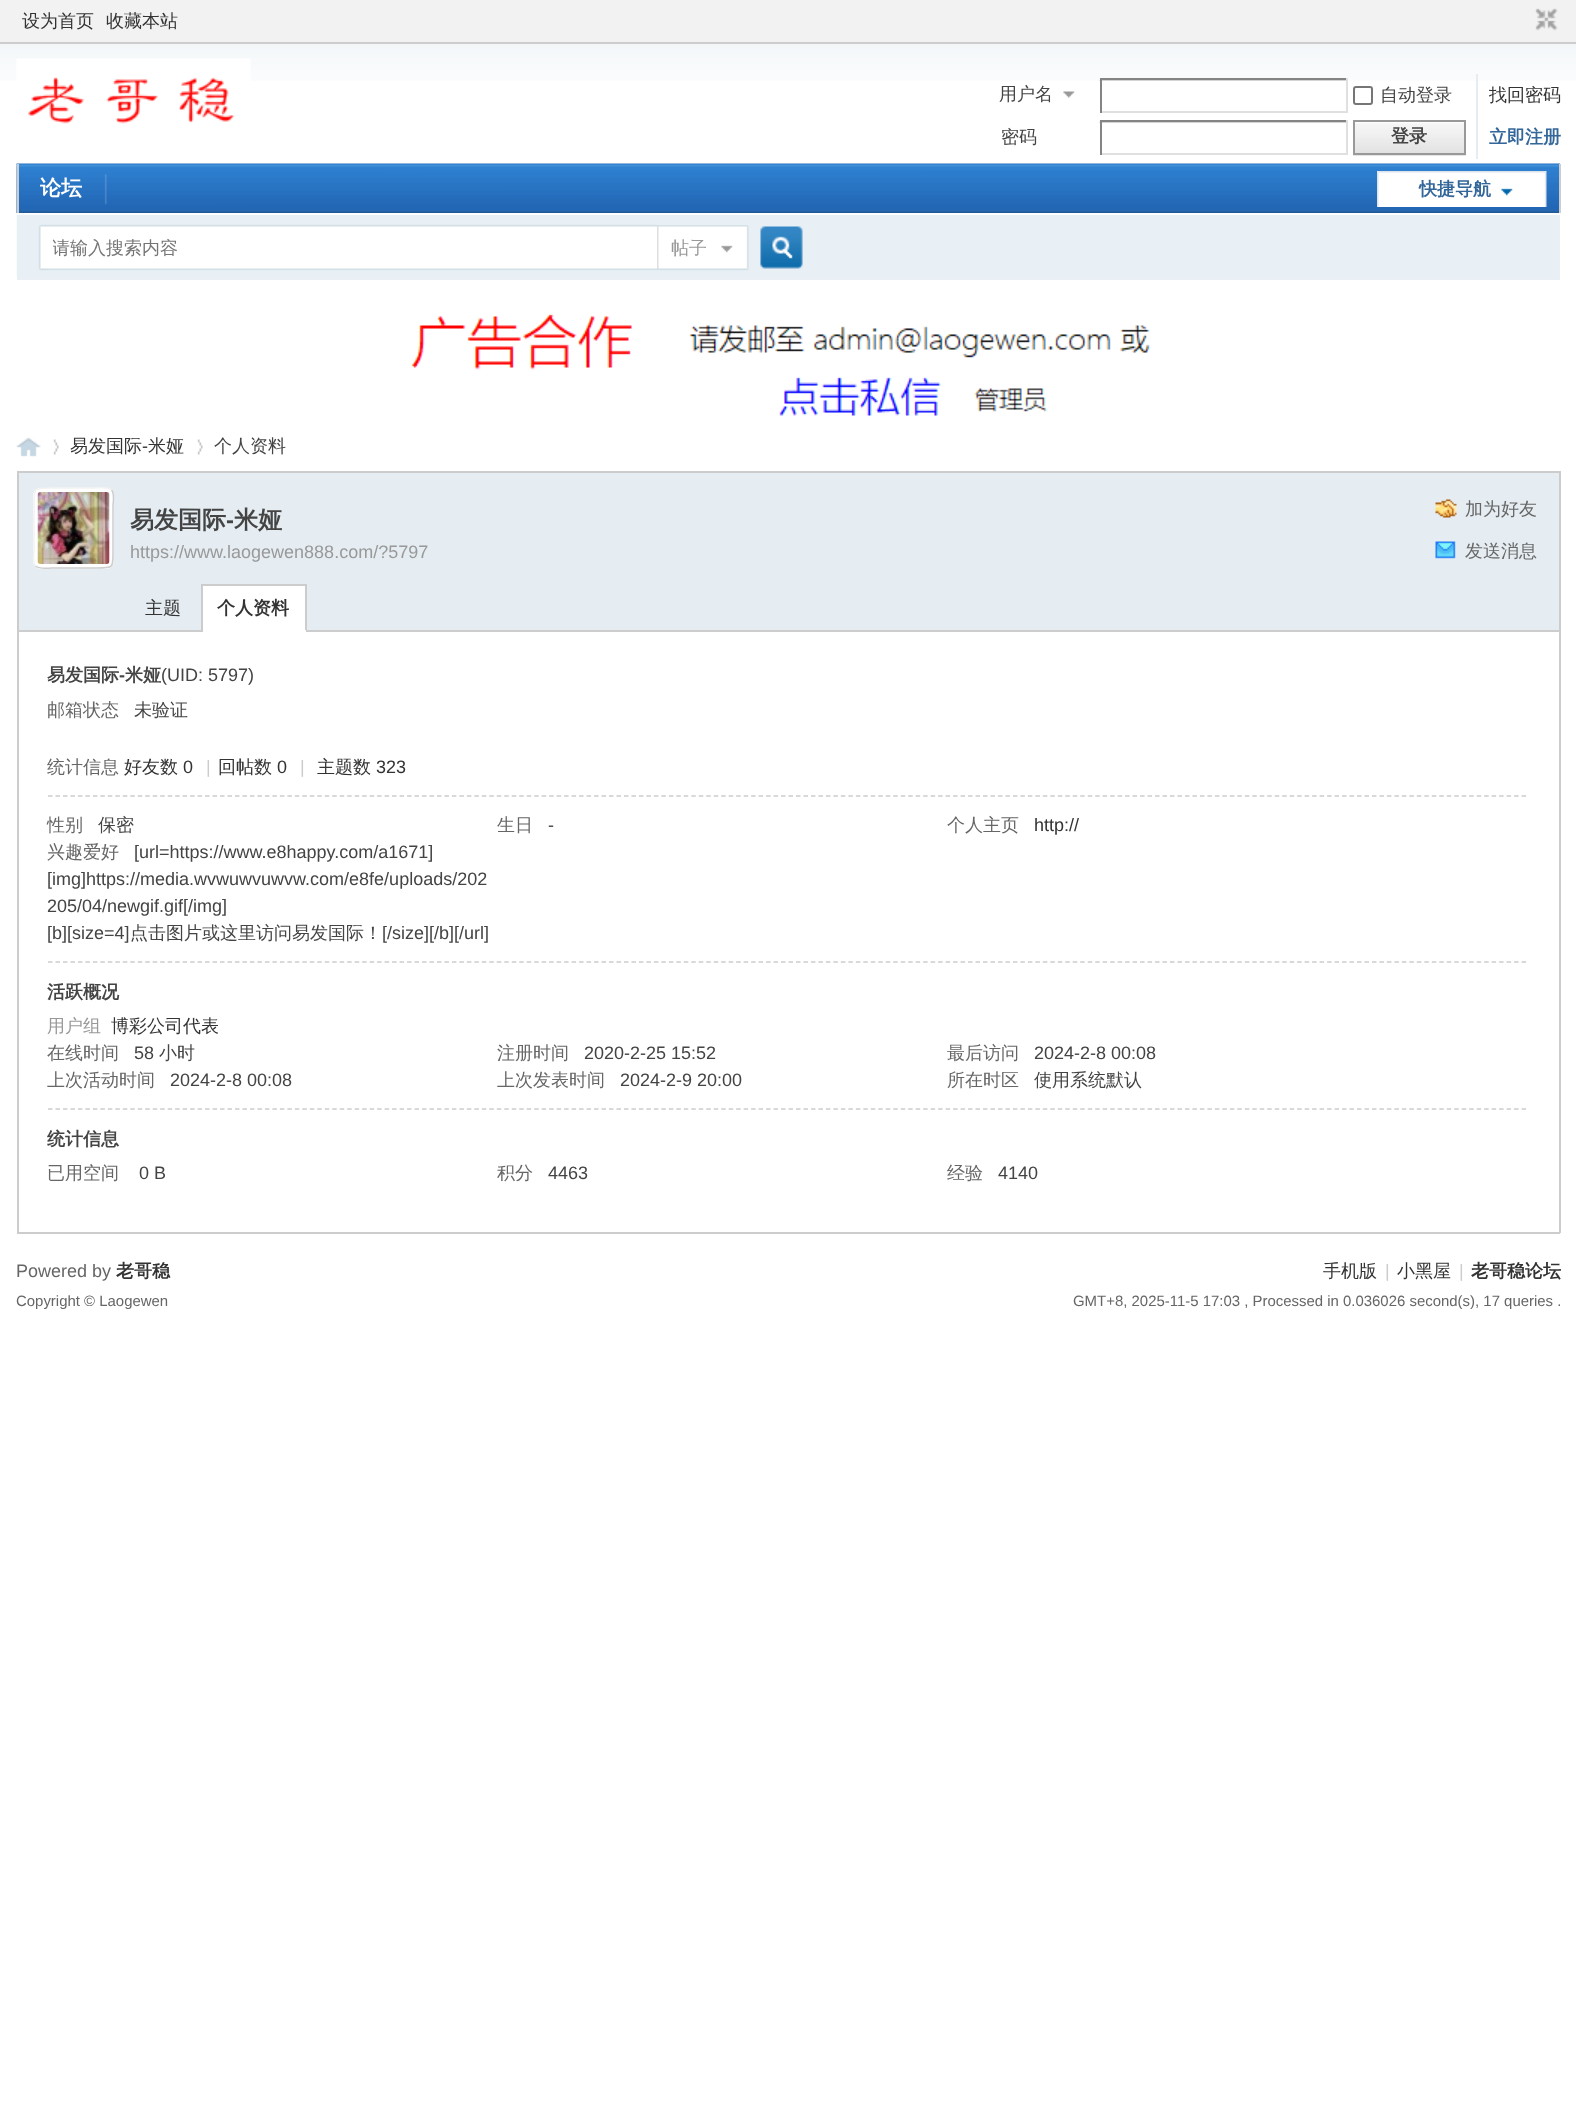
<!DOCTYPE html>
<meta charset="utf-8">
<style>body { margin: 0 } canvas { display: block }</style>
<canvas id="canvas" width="1576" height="2102"></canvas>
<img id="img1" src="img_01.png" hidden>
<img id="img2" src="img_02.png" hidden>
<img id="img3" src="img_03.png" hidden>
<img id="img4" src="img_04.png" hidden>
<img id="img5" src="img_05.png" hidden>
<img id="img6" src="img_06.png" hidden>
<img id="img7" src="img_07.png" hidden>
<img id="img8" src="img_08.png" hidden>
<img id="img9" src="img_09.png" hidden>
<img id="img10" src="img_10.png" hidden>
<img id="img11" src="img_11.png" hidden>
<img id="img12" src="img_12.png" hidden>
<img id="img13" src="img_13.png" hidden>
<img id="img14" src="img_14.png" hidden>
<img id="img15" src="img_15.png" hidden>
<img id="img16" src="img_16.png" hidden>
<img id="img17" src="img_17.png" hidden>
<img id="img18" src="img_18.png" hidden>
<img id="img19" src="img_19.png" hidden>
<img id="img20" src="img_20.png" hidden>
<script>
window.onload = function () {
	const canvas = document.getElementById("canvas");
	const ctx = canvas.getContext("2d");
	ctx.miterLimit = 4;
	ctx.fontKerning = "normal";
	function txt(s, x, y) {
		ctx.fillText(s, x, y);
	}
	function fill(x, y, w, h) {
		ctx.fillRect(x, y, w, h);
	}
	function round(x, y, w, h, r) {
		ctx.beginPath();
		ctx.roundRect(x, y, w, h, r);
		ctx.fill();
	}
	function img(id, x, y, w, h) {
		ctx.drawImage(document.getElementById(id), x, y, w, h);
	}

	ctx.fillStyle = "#FFFFFF";
	fill(0, 0, 1576, 2102);
	img("img1", 0, 44, 1576, 37);
	ctx.fillStyle = "#F2F2F2";
	fill(0, 0, 1576, 42);
	ctx.fillStyle = "#CDCDCD";
	fill(0, 42, 1576, 2);
	img("img2", 1535, 8, 23, 23);
	img("img3", 16, 58, 235, 66);
	img("img4", 1063, 91, 12, 7);
	img("img5", 1099, 79, 247, 2);
	ctx.fillStyle = "#848484";
	fill(1100, 78, 247, 2);
	ctx.fillStyle = "#E0E0E0";
	fill(1346, 78, 2, 35);
	fill(1100, 111, 247, 2);
	ctx.fillStyle = "#848484";
	fill(1100, 78, 2, 35);
	ctx.beginPath();
	ctx.roundRect(1354, 87, 18, 17, 2);
	ctx.strokeStyle = "#767676";
	ctx.lineWidth = 2;
	ctx.stroke();
	img("img6", 1099, 121, 247, 2);
	fill(1100, 120, 247, 2);
	ctx.fillStyle = "#E0E0E0";
	fill(1346, 120, 2, 35);
	fill(1100, 153, 247, 2);
	ctx.fillStyle = "#848484";
	fill(1100, 120, 2, 35);
	ctx.fillStyle = "#E5EDF2";
	fill(1476, 74, 2, 85);
	ctx.fillStyle = "#E5E5E5";
	ctx.beginPath();
	ctx.moveTo(1353, 154);
	ctx.lineTo(1353, 156);
	ctx.lineTo(1466, 156);
	ctx.lineTo(1466, 122);
	ctx.lineTo(1466, 154);
	ctx.closePath();
	ctx.fill();
	img("img7", 1355, 122, 109, 31);
	ctx.strokeStyle = "#999999";
	ctx.strokeRect(1354, 121, 111, 33);
	img("img8", 16, 163, 1544, 50);
	ctx.fillStyle = "#CDCDCD";
	fill(1559, 164, 2, 49);
	fill(17, 164, 2, 49);
	img("img9", 104, 174, 3, 31);
	img("img10", 1377, 171, 170, 36);
	ctx.fillStyle = "#E8EFF5";
	fill(17, 215, 1543, 63);
	ctx.fillStyle = "#E9EFF5";
	fill(17, 278, 1543, 2);
	img("img11", 16, 214, 32, 63);
	img("img12", 48, 224, 609, 47);
	img("img13", 657, 225, 92, 46);
	img("img14", 760, 226, 43, 43);
	img("img15", 411, 314, 739, 102);
	img("img16", 16, 437, 25, 20);
	img("img17", 53, 439, 6, 16);
	img("img17", 197, 439, 6, 16);
	ctx.fillStyle = "#E5EDF2";
	fill(19, 473, 1540, 157);
	ctx.fillStyle = "#CCCCCC";
	fill(17, 471, 1543, 2);
	fill(1559, 471, 2, 762);
	fill(17, 471, 2, 161);
	ctx.fillStyle = "#FFFFFF";
	round(33, 488, 81, 81, 8);
	ctx.beginPath();
	ctx.moveTo(111.5, 490);
	ctx.bezierCurveTo(115, 494, 113, 502.5, 113, 506);
	ctx.lineTo(113, 550);
	ctx.bezierCurveTo(113, 568.5, 114, 568, 95.5, 568);
	ctx.lineTo(51.5, 568);
	ctx.bezierCurveTo(48, 568, 39.5, 569.5, 35.5, 566);
	ctx.strokeStyle = "#CDCDCD";
	ctx.lineWidth = 1.5;
	ctx.stroke();
	ctx.beginPath();
	ctx.moveTo(35.5, 566);
	ctx.bezierCurveTo(32, 562, 34, 553.5, 34, 550);
	ctx.lineTo(34, 506);
	ctx.bezierCurveTo(34, 487.5, 33, 488, 51.5, 488);
	ctx.lineTo(95.5, 488);
	ctx.bezierCurveTo(99, 488, 107.5, 486.5, 111.5, 490);
	ctx.strokeStyle = "#F2F2F2";
	ctx.stroke();
	img("img18", 37, 492, 73, 72);
	img("img19", 1435, 499, 22, 19);
	img("img20", 1435, 541, 21, 18);
	ctx.fillStyle = "#CDCDCD";
	fill(18, 630, 1541, 2);
	ctx.fillStyle = "#FFFFFF";
	fill(203, 586, 102, 44);
	ctx.fillStyle = "#CCCCCC";
	fill(201, 584, 105, 2);
	fill(305, 584, 2, 48);
	ctx.fillStyle = "#FFFFFF";
	fill(201, 630, 105, 2);
	ctx.fillStyle = "#CCCCCC";
	fill(201, 584, 2, 48);
	fill(17, 1232, 1543, 2);
	fill(17, 632, 2, 601);
	ctx.beginPath();
	ctx.moveTo(48, 962);
	ctx.lineTo(1528.5, 962);
	ctx.strokeStyle = "#CDCDCD";
	ctx.setLineDash([4.5, 2.98]);
	ctx.stroke();
	ctx.beginPath();
	ctx.moveTo(48, 796);
	ctx.lineTo(1528.5, 796);
	ctx.stroke();
	ctx.beginPath();
	ctx.moveTo(48, 1109);
	ctx.lineTo(1528.5, 1109);
	ctx.stroke();
	ctx.font = "500 18px WenQuanYi Zen Hei";
	ctx.fillStyle = "#333333";
	txt("设为首页", 22, 27);
	txt("收藏本站", 106, 27);
	ctx.fillStyle = "#444444";
	txt("用户名", 999, 100);
	txt("自动登录", 1380, 101);
	ctx.fillStyle = "#333333";
	txt("找回密码", 1489, 101);
	ctx.fillStyle = "#444444";
	txt("密码", 1001, 143);
	ctx.font = "bold 18px WenQuanYi Zen Hei";
	txt("登录", 1391, 142);
	ctx.fillStyle = "#336699";
	txt("立即注册", 1489, 143);
	ctx.font = "bold 21px WenQuanYi Zen Hei";
	ctx.fillStyle = "#FFFFFF";
	txt("论坛", 40, 195);
	ctx.font = "bold 18px WenQuanYi Zen Hei";
	ctx.fillStyle = "#336699";
	txt("快捷导航", 1419, 195);
	ctx.save();
	ctx.beginPath();
	ctx.rect(53, 237, 600, 26);
	ctx.clip();
	ctx.font = "500 18px WenQuanYi Zen Hei";
	ctx.fillStyle = "#757575";
	txt("请输入搜索内容", 52, 254);
	ctx.restore();
	ctx.font = "500 18px WenQuanYi Zen Hei";
	ctx.fillStyle = "#999999";
	txt("帖子", 671, 254);
	ctx.fillStyle = "#333333";
	txt("易发国际", 70, 452);
	ctx.font = "18px Liberation Sans";
	txt("-", 142, 452);
	ctx.font = "500 18px WenQuanYi Zen Hei";
	txt("米娅", 148, 452);
	ctx.fillStyle = "#444444";
	txt("个人资料", 214, 452);
	ctx.font = "bold 24px WenQuanYi Zen Hei";
	txt("易发国际", 130, 528);
	ctx.font = "bold 24px Liberation Sans";
	txt("-", 226, 528);
	ctx.font = "bold 24px WenQuanYi Zen Hei";
	txt("米娅", 234, 528);
	ctx.font = "18px Liberation Sans";
	ctx.fillStyle = "#999999";
	txt("https://www.laogewen888.com/?5797", 130, 558);
	ctx.font = "500 18px WenQuanYi Zen Hei";
	ctx.fillStyle = "#666666";
	txt("加为好友", 1465, 515);
	txt("发送消息", 1465, 557);
	ctx.fillStyle = "#333333";
	txt("主题", 145, 614);
	ctx.font = "bold 18px WenQuanYi Zen Hei";
	txt("个人资料", 217, 614);
	ctx.fillStyle = "#444444";
	txt("易发国际", 47, 681);
	ctx.font = "bold 18px Liberation Sans";
	txt("-", 119, 681);
	ctx.font = "bold 18px WenQuanYi Zen Hei";
	txt("米娅", 125, 681);
	ctx.font = "18px Liberation Sans";
	txt("(UID: 5797)", 161, 681);
	ctx.font = "500 18px WenQuanYi Zen Hei";
	ctx.fillStyle = "#666666";
	txt("邮箱状态", 47, 716);
	ctx.fillStyle = "#444444";
	txt("未验证", 134, 716);
	ctx.fillStyle = "#666666";
	txt("统计信息", 47, 773);
	ctx.fillStyle = "#333333";
	txt("好友数", 124, 773);
	ctx.font = "18px Liberation Sans";
	txt("0", 183, 773);
	ctx.fillStyle = "#CCCCCC";
	txt("|", 206, 773);
	ctx.font = "500 18px WenQuanYi Zen Hei";
	ctx.fillStyle = "#333333";
	txt("回帖数", 218, 773);
	ctx.font = "18px Liberation Sans";
	txt("0", 277, 773);
	ctx.fillStyle = "#CCCCCC";
	txt("|", 300, 773);
	ctx.font = "500 18px WenQuanYi Zen Hei";
	ctx.fillStyle = "#333333";
	txt("主题数", 317, 773);
	ctx.font = "18px Liberation Sans";
	txt("323", 376, 773);
	ctx.font = "500 18px WenQuanYi Zen Hei";
	ctx.fillStyle = "#666666";
	txt("性别", 47, 831);
	ctx.fillStyle = "#444444";
	txt("保密", 98, 831);
	ctx.fillStyle = "#666666";
	txt("生日", 497, 831);
	ctx.font = "18px Liberation Sans";
	ctx.fillStyle = "#444444";
	txt("-", 548, 831);
	ctx.font = "500 18px WenQuanYi Zen Hei";
	ctx.fillStyle = "#666666";
	txt("个人主页", 947, 831);
	ctx.font = "18px Liberation Sans";
	ctx.fillStyle = "#333333";
	txt("http://", 1034, 831);
	ctx.font = "500 18px WenQuanYi Zen Hei";
	ctx.fillStyle = "#666666";
	txt("兴趣爱好", 47, 858);
	ctx.font = "18px Liberation Sans";
	ctx.fillStyle = "#444444";
	txt("[url=https://www.e8happy.com/a1671]", 134, 858);
	txt("[img]https://media.wvwuwvuwvw.com/e8fe/uploads/202", 47, 885);
	txt("205/04/newgif.gif[/img]", 47, 912);
	txt("[b][size=4]", 47, 939);
	ctx.font = "500 18px WenQuanYi Zen Hei";
	txt("点击图片或这里访问易发国际！", 130, 939);
	ctx.font = "18px Liberation Sans";
	txt("[/size][/b][/url]", 382, 939);
	ctx.font = "bold 18px WenQuanYi Zen Hei";
	txt("活跃概况", 47, 998);
	ctx.font = "500 18px WenQuanYi Zen Hei";
	ctx.fillStyle = "#999999";
	txt("用户组", 47, 1032);
	ctx.fillStyle = "#333333";
	txt("博彩公司代表", 111, 1032);
	ctx.fillStyle = "#666666";
	txt("在线时间", 47, 1059);
	ctx.font = "18px Liberation Sans";
	ctx.fillStyle = "#444444";
	txt("58", 134, 1059);
	ctx.font = "500 18px WenQuanYi Zen Hei";
	txt("小时", 159, 1059);
	ctx.fillStyle = "#666666";
	txt("注册时间", 497, 1059);
	ctx.font = "18px Liberation Sans";
	ctx.fillStyle = "#444444";
	txt("2020-2-25 15:52", 584, 1059);
	ctx.font = "500 18px WenQuanYi Zen Hei";
	ctx.fillStyle = "#666666";
	txt("最后访问", 947, 1059);
	ctx.font = "18px Liberation Sans";
	ctx.fillStyle = "#444444";
	txt("2024-2-8 00:08", 1034, 1059);
	ctx.font = "500 18px WenQuanYi Zen Hei";
	ctx.fillStyle = "#666666";
	txt("上次活动时间", 47, 1086);
	ctx.font = "18px Liberation Sans";
	ctx.fillStyle = "#444444";
	txt("2024-2-8 00:08", 170, 1086);
	ctx.font = "500 18px WenQuanYi Zen Hei";
	ctx.fillStyle = "#666666";
	txt("上次发表时间", 497, 1086);
	ctx.font = "18px Liberation Sans";
	ctx.fillStyle = "#444444";
	txt("2024-2-9 20:00", 620, 1086);
	ctx.font = "500 18px WenQuanYi Zen Hei";
	ctx.fillStyle = "#666666";
	txt("所在时区", 947, 1086);
	ctx.fillStyle = "#444444";
	txt("使用系统默认", 1034, 1086);
	ctx.font = "bold 18px WenQuanYi Zen Hei";
	txt("统计信息", 47, 1145);
	ctx.font = "500 18px WenQuanYi Zen Hei";
	ctx.fillStyle = "#666666";
	txt("已用空间", 47, 1179);
	ctx.font = "18px Liberation Sans";
	ctx.fillStyle = "#444444";
	txt("0 B", 139, 1179);
	ctx.font = "500 18px WenQuanYi Zen Hei";
	ctx.fillStyle = "#666666";
	txt("积分", 497, 1179);
	ctx.font = "18px Liberation Sans";
	ctx.fillStyle = "#444444";
	txt("4463", 548, 1179);
	ctx.font = "500 18px WenQuanYi Zen Hei";
	ctx.fillStyle = "#666666";
	txt("经验", 947, 1179);
	ctx.font = "18px Liberation Sans";
	ctx.fillStyle = "#444444";
	txt("4140", 998, 1179);
	ctx.fillStyle = "#666666";
	txt("Powered by", 16, 1277);
	ctx.font = "bold 18px WenQuanYi Zen Hei";
	ctx.fillStyle = "#333333";
	txt("老哥稳", 116, 1277);
	ctx.font = "14.95px Liberation Sans";
	ctx.fillStyle = "#666666";
	txt("Copyright © Laogewen", 16, 1306);
	ctx.font = "500 18px WenQuanYi Zen Hei";
	ctx.fillStyle = "#333333";
	txt("手机版", 1323, 1277);
	ctx.font = "18px Liberation Sans";
	ctx.fillStyle = "#CCCCCC";
	txt("|", 1385, 1277);
	ctx.font = "500 18px WenQuanYi Zen Hei";
	ctx.fillStyle = "#333333";
	txt("小黑屋", 1397, 1277);
	ctx.font = "18px Liberation Sans";
	ctx.fillStyle = "#CCCCCC";
	txt("|", 1459, 1277);
	ctx.font = "bold 18px WenQuanYi Zen Hei";
	ctx.fillStyle = "#333333";
	txt("老哥稳论坛", 1471, 1277);
	ctx.font = "14.95px Liberation Sans";
	ctx.fillStyle = "#666666";
	txt("GMT+8, 2025-11-5 17:03 , Processed in 0.036026 second(s), 17 queries .", 1073, 1306);
};
</script>
